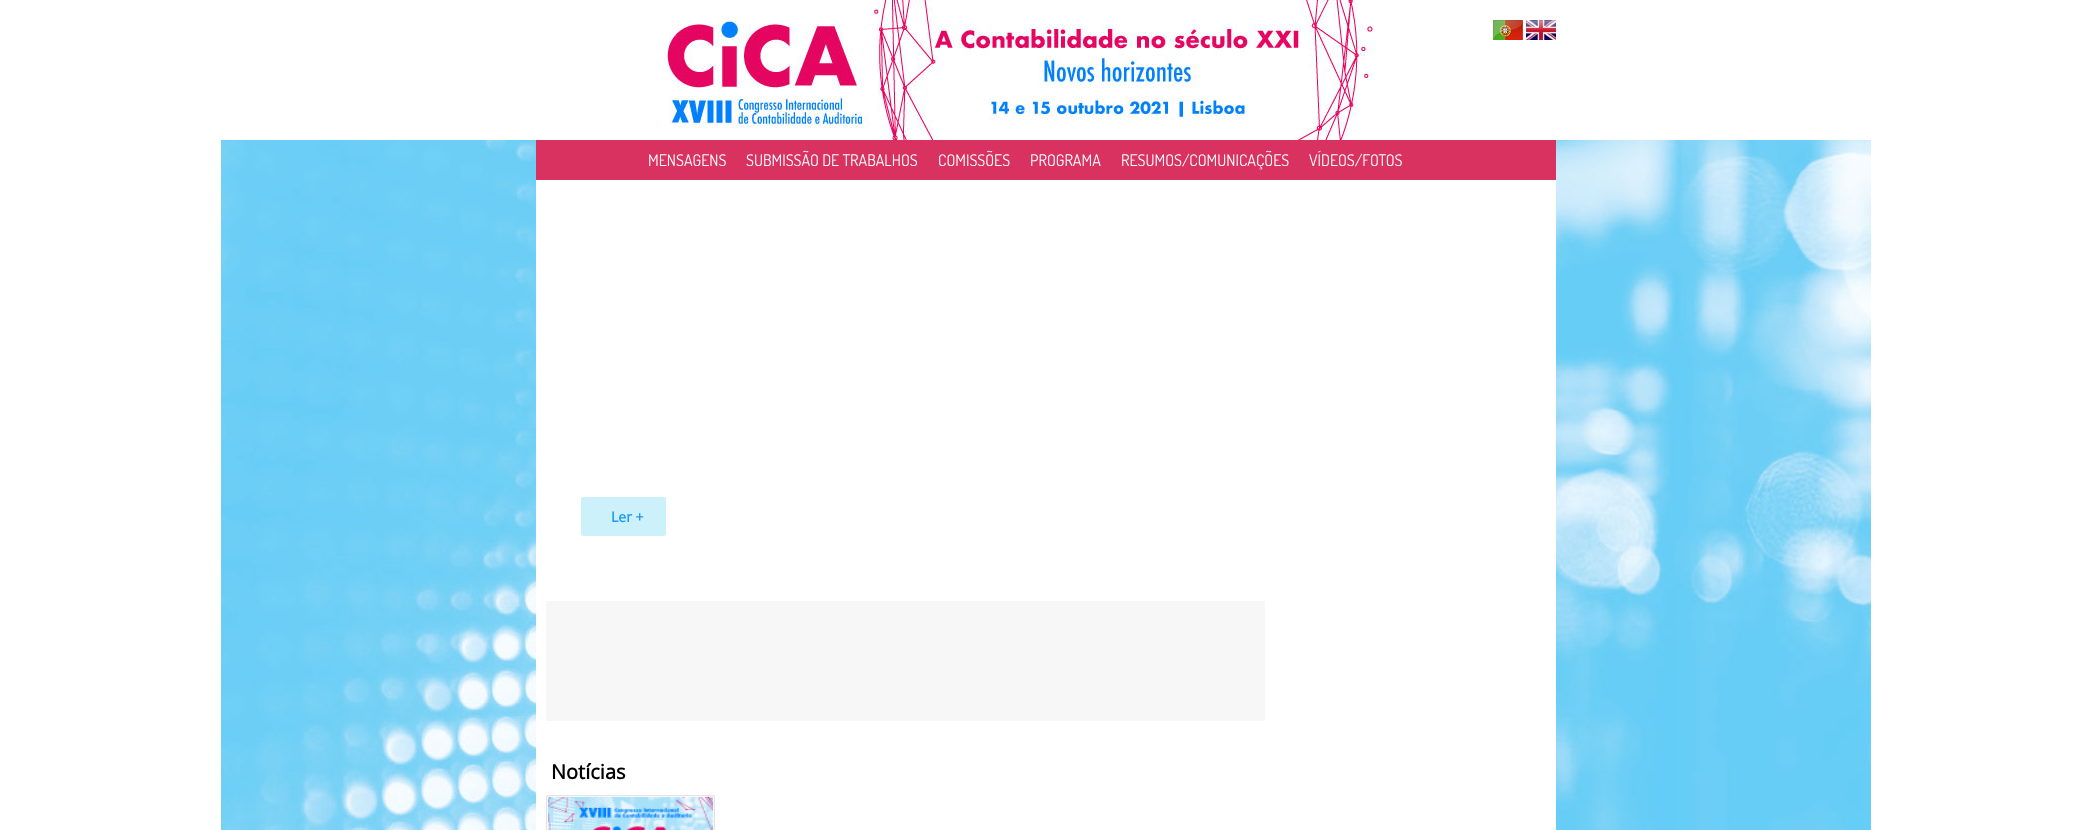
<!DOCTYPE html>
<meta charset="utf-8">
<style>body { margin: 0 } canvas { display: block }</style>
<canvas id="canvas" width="2092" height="830"></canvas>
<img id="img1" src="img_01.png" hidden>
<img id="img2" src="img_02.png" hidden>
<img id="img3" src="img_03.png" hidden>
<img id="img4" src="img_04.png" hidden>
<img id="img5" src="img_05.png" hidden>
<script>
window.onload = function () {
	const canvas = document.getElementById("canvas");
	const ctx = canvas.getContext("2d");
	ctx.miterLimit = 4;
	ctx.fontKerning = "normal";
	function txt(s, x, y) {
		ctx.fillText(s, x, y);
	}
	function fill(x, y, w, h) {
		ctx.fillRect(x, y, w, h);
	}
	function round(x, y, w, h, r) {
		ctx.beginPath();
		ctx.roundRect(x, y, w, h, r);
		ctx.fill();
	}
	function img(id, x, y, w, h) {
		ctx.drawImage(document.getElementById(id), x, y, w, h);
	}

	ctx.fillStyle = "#FFFFFF";
	fill(0, 0, 2092, 830);
	img("img1", 661, 0, 712, 140);
	img("img2", 1493, 20, 30, 20);
	img("img3", 1526, 20, 30, 20);
	img("img4", 221, 140, 1650, 690);
	fill(536, 180, 1020, 650);
	ctx.fillStyle = "#D93261";
	fill(536, 140, 1020, 40);
	ctx.fillStyle = "#CDF1FA";
	round(581, 497, 85, 39, 2);
	ctx.fillStyle = "#F7F7F7";
	fill(546, 601, 719, 120);
	ctx.beginPath();
	ctx.roundRect(546.5, 795.5, 168, 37, 1.5);
	ctx.fill();
	ctx.strokeStyle = "#E4E4E4";
	ctx.stroke();
	img("img5", 548, 797, 165, 33);
	ctx.font = "16px Dosis";
	ctx.fillStyle = "#FFFFFF";
	txt("MENSAGENS", 648, 166);
	txt("SUBMISSÃO DE TRABALHOS", 746, 166);
	txt("COMISSÕES", 938, 166);
	txt("PROGRAMA", 1030, 166);
	txt("RESUMOS/COMUNICAÇÕES", 1121, 166);
	txt("VÍDEOS/FOTOS", 1309, 166);
	ctx.font = "bold 14px Open Sans";
	ctx.fillStyle = "#1E99F7";
	txt("Ler +", 611, 522);
	ctx.font = "bold 20px Open Sans";
	ctx.fillStyle = "#000000";
	txt("Notícias", 551, 779);
};
</script>
